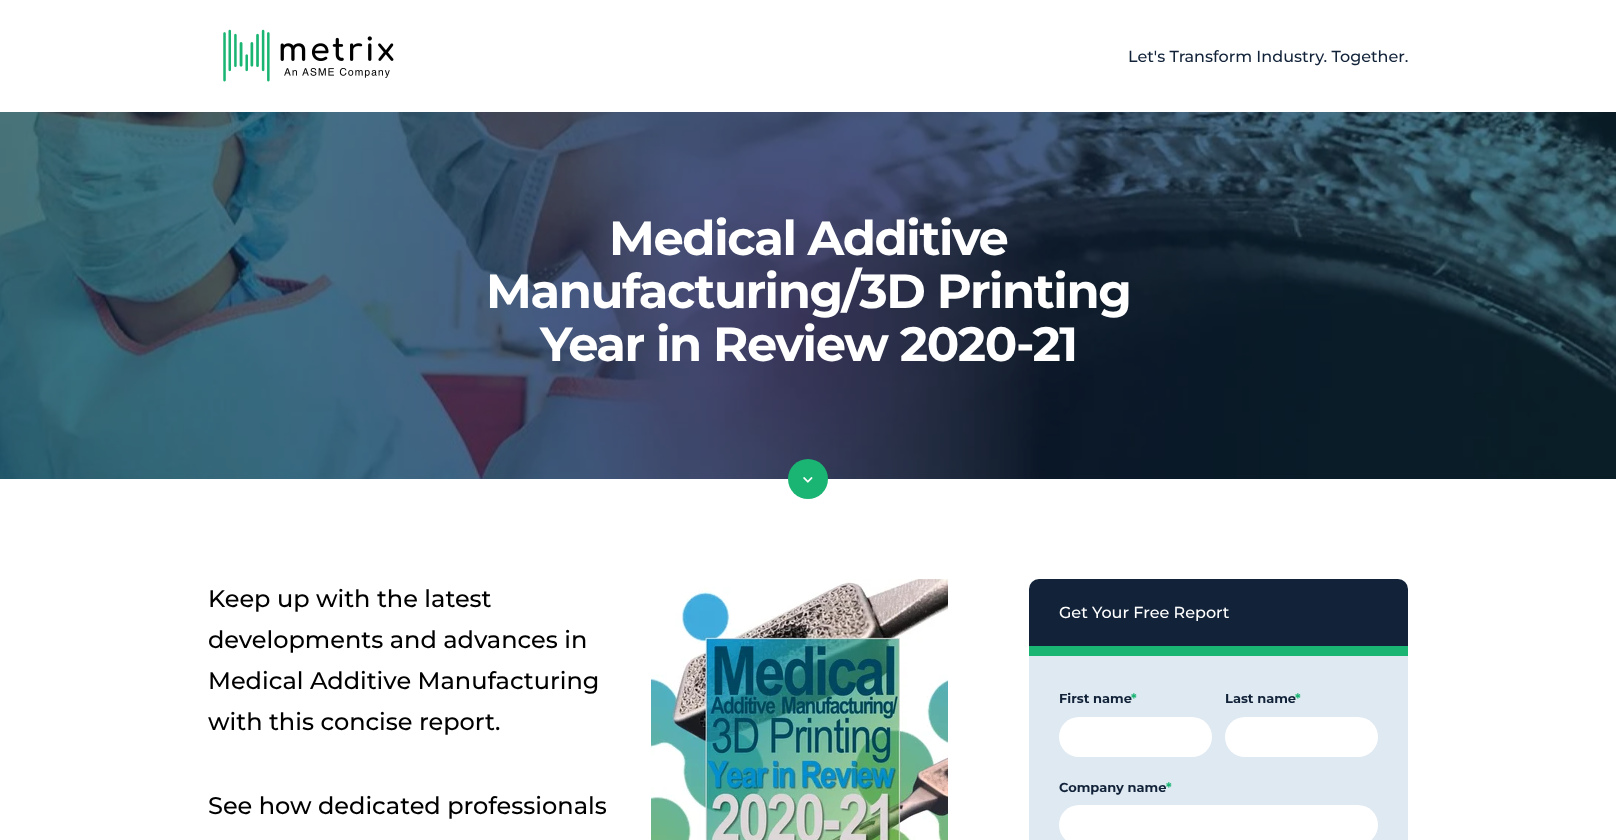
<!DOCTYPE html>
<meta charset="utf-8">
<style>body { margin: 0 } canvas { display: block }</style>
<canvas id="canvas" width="1616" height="840"></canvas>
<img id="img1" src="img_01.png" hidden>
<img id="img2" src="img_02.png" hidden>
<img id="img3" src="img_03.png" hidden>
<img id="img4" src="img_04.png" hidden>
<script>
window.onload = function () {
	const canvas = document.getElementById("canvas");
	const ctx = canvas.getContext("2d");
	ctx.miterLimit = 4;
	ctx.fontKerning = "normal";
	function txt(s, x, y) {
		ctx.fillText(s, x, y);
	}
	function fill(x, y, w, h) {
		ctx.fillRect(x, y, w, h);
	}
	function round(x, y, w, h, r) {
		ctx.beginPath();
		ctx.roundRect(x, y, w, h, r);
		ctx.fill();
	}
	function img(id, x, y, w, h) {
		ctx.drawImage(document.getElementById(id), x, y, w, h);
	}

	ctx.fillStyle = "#FFFFFF";
	fill(0, 0, 1616, 840);
	img("img1", 223, 29, 171, 53);
	img("img2", 0, 112, 1616, 367);
	ctx.fillStyle = "rgba(18, 35, 57, 0.5)";
	fill(0, 112, 1616, 367);
	ctx.fillStyle = "#1BB573";
	ctx.beginPath();
	ctx.arc(808, 479, 20, 0, Math.PI * 2);
	ctx.fill();
	img("img3", 803, 477, 10, 6);
	img("img4", 651, 579, 297, 261);
	ctx.fillStyle = "#122339";
	ctx.beginPath();
	ctx.roundRect(1029, 579, 379, 77, [10, 10, 0, 0]);
	ctx.fill();
	ctx.fillStyle = "#1BB573";
	fill(1029, 646, 379, 10);
	ctx.fillStyle = "#DFE9F2";
	fill(1029, 656, 379, 184);
	ctx.fillStyle = "#FFFFFF";
	round(1059, 717, 153, 40, 20);
	round(1225, 717, 153, 40, 20);
	round(1059, 805, 319, 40, 20);
	ctx.font = "500 16px Montserrat";
	ctx.fillStyle = "#122339";
	txt("Let's Transform Industry. Together.", 1128, 62);
	ctx.letterSpacing = "-1.4px";
	ctx.font = "bold 48px Montserrat";
	ctx.fillStyle = "#FFFFFF";
	txt("Medical Additive", 609, 255);
	txt("Manufacturing/3D Printing", 486, 308);
	txt("Year in Review 2020-21", 540, 361);
	ctx.letterSpacing = "0px";
	ctx.font = "500 24px Montserrat";
	ctx.fillStyle = "#000000";
	txt("Keep up with the latest", 208, 607);
	txt("developments and advances in", 208, 648);
	txt("Medical Additive Manufacturing", 208, 689);
	txt("with this concise report.", 208, 730);
	txt("See how dedicated professionals", 208, 814);
	ctx.font = "500 16px Montserrat";
	ctx.fillStyle = "#FFFFFF";
	txt("Get Your Free Report", 1059, 618);
	ctx.font = "bold 13px Montserrat";
	ctx.fillStyle = "#122339";
	txt("First name", 1059, 703);
	ctx.fillStyle = "#1BB573";
	txt("*", 1131, 703);
	ctx.fillStyle = "#122339";
	txt("Last name", 1225, 703);
	ctx.fillStyle = "#1BB573";
	txt("*", 1295, 703);
	ctx.fillStyle = "#122339";
	txt("Company name", 1059, 792);
	ctx.fillStyle = "#1BB573";
	txt("*", 1166, 792);
};
</script>
